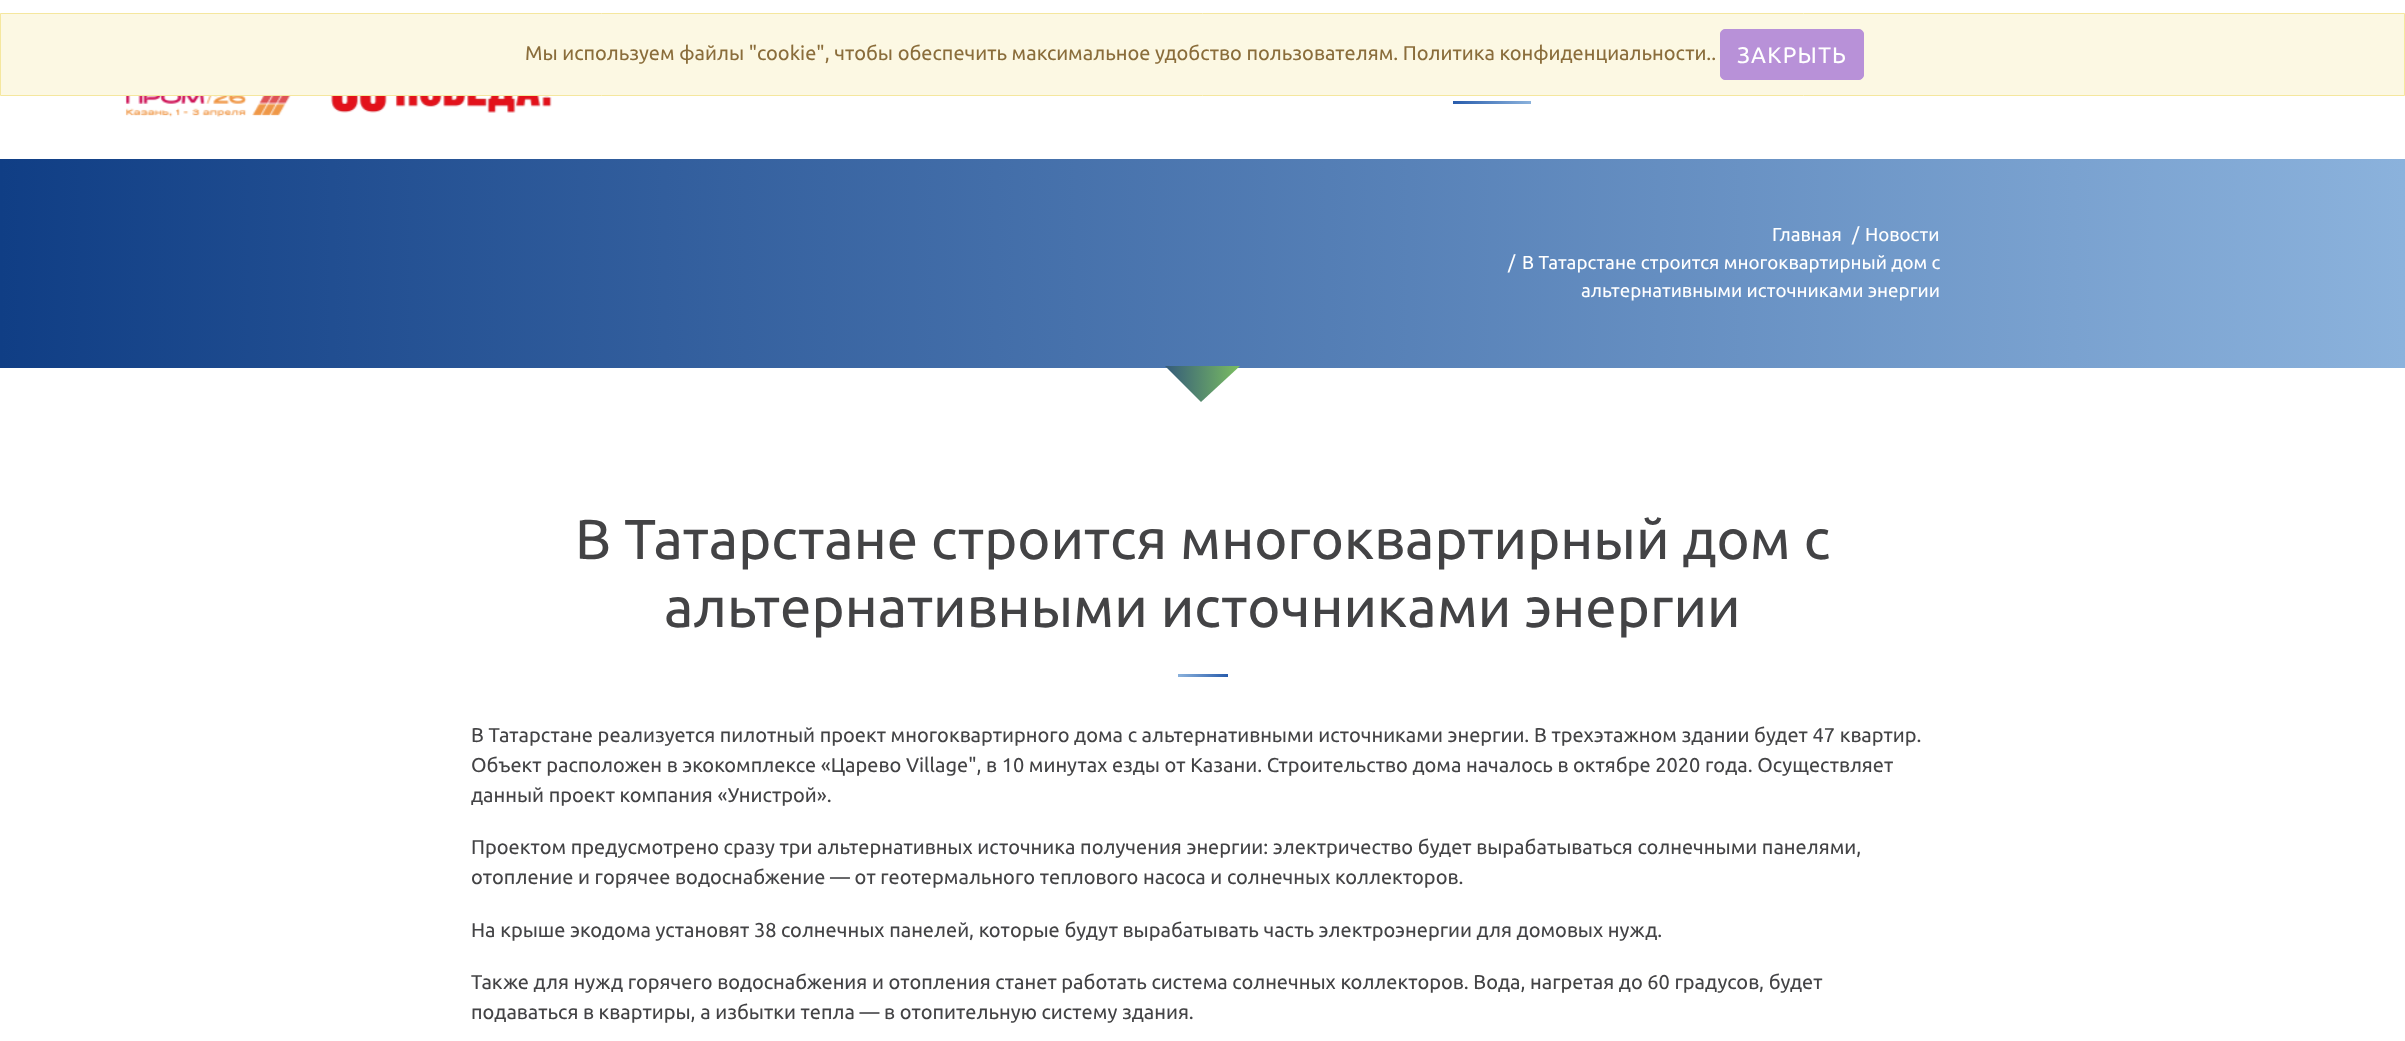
<!DOCTYPE html>
<meta charset="utf-8">
<style>body { margin: 0 } canvas { display: block }</style>
<canvas id="canvas" width="2405" height="1041"></canvas>
<img id="img1" src="img_01.png" hidden>
<img id="img2" src="img_02.png" hidden>
<script>
window.onload = function () {
	const canvas = document.getElementById("canvas");
	const ctx = canvas.getContext("2d");
	ctx.miterLimit = 4;
	ctx.fontKerning = "normal";
	function txt(s, x, y) {
		ctx.fillText(s, x, y);
	}
	function fill(x, y, w, h) {
		ctx.fillRect(x, y, w, h);
	}
	function img(id, x, y, w, h) {
		ctx.drawImage(document.getElementById(id), x, y, w, h);
	}
	let gradient;

	ctx.fillStyle = "#FFFFFF";
	fill(0, 0, 2405, 1041);
	ctx.fillStyle = "#FCF8E3";
	ctx.beginPath();
	ctx.rect(0.5, 13.5, 2404, 82);
	ctx.fill();
	ctx.strokeStyle = "#F5E79E";
	ctx.stroke();
	ctx.fillStyle = "#B891D8";
	ctx.beginPath();
	ctx.roundRect(1720.5, 29.5, 143, 50, 4.5);
	ctx.fill();
	ctx.strokeStyle = "#B891D8";
	ctx.stroke();
	img("img1", 125, 96, 166, 21);
	img("img2", 330, 96, 222, 17);
	gradient = ctx.createLinearGradient(1453, 103, 1531, 103);
	gradient.addColorStop(0, "#285CAC");
	gradient.addColorStop(1, "#8BB2DC");
	ctx.fillStyle = gradient;
	fill(1453, 101, 78, 3);
	gradient = ctx.createLinearGradient(2405, 263, 0, 263);
	gradient.addColorStop(0, "#8BB2DC");
	gradient.addColorStop(1, "#103E85");
	ctx.fillStyle = gradient;
	fill(0, 159, 2405, 209);
	gradient = ctx.createLinearGradient(1165, 366, 1240, 366);
	gradient.addColorStop(0, "#345B7A");
	gradient.addColorStop(1, "#7BBE61");
	ctx.fillStyle = gradient;
	ctx.beginPath();
	ctx.moveTo(1165, 366);
	ctx.lineTo(1240, 366);
	ctx.lineTo(1201, 402);
	ctx.fill();
	gradient = ctx.createLinearGradient(1178, 675, 1228, 675);
	gradient.addColorStop(0, "#8BB2DC");
	gradient.addColorStop(1, "#285CAC");
	ctx.fillStyle = gradient;
	fill(1178, 674, 50, 3);
	ctx.font = "20px Ubuntu";
	ctx.fillStyle = "#8A6D3B";
	txt("Мы используем файлы \"cookie\", чтобы обеспечить максимальное удобство пользователям. Политика конфиденциальности..", 525, 60);
	ctx.letterSpacing = "1.25px";
	ctx.font = "22.5px Ubuntu";
	ctx.fillStyle = "#FFFFFF";
	txt("ЗАКРЫТЬ", 1737, 63);
	ctx.letterSpacing = "0px";
	ctx.font = "18.75px Ubuntu";
	txt("Главная", 1772, 241);
	txt("/", 1852, 241);
	txt("Новости", 1865, 241);
	txt("/", 1508, 269);
	txt("В Татарстане строится многоквартирный дом с", 1522, 269);
	txt("альтернативными источниками энергии", 1581, 297);
	ctx.font = "56.25px Ubuntu";
	ctx.fillStyle = "#434345";
	txt("В Татарстане строится многоквартирный дом с", 575, 559);
	txt("альтернативными источниками энергии", 664, 627);
	ctx.font = "20px Ubuntu";
	txt("В Татарстане реализуется пилотный проект многоквартирного дома с альтернативными источниками энергии. В трехэтажном здании будет 47 квартир.", 471, 742);
	txt("Объект расположен в экокомплексе «Царево Village\", в 10 минутах езды от Казани. Строительство дома началось в октябре 2020 года. Осуществляет", 471, 772);
	txt("данный проект компания «Унистрой».", 471, 802);
	txt("Проектом предусмотрено сразу три альтернативных источника получения энергии: электричество будет вырабатываться солнечными панелями,", 471, 854);
	txt("отопление и горячее водоснабжение — от геотермального теплового насоса и солнечных коллекторов.", 471, 884);
	txt("На крыше экодома установят 38 солнечных панелей, которые будут вырабатывать часть электроэнергии для домовых нужд.", 471, 937);
	txt("Также для нужд горячего водоснабжения и отопления станет работать система солнечных коллекторов. Вода, нагретая до 60 градусов, будет", 471, 989);
	txt("подаваться в квартиры, а избытки тепла — в отопительную систему здания.", 471, 1019);
};
</script>
